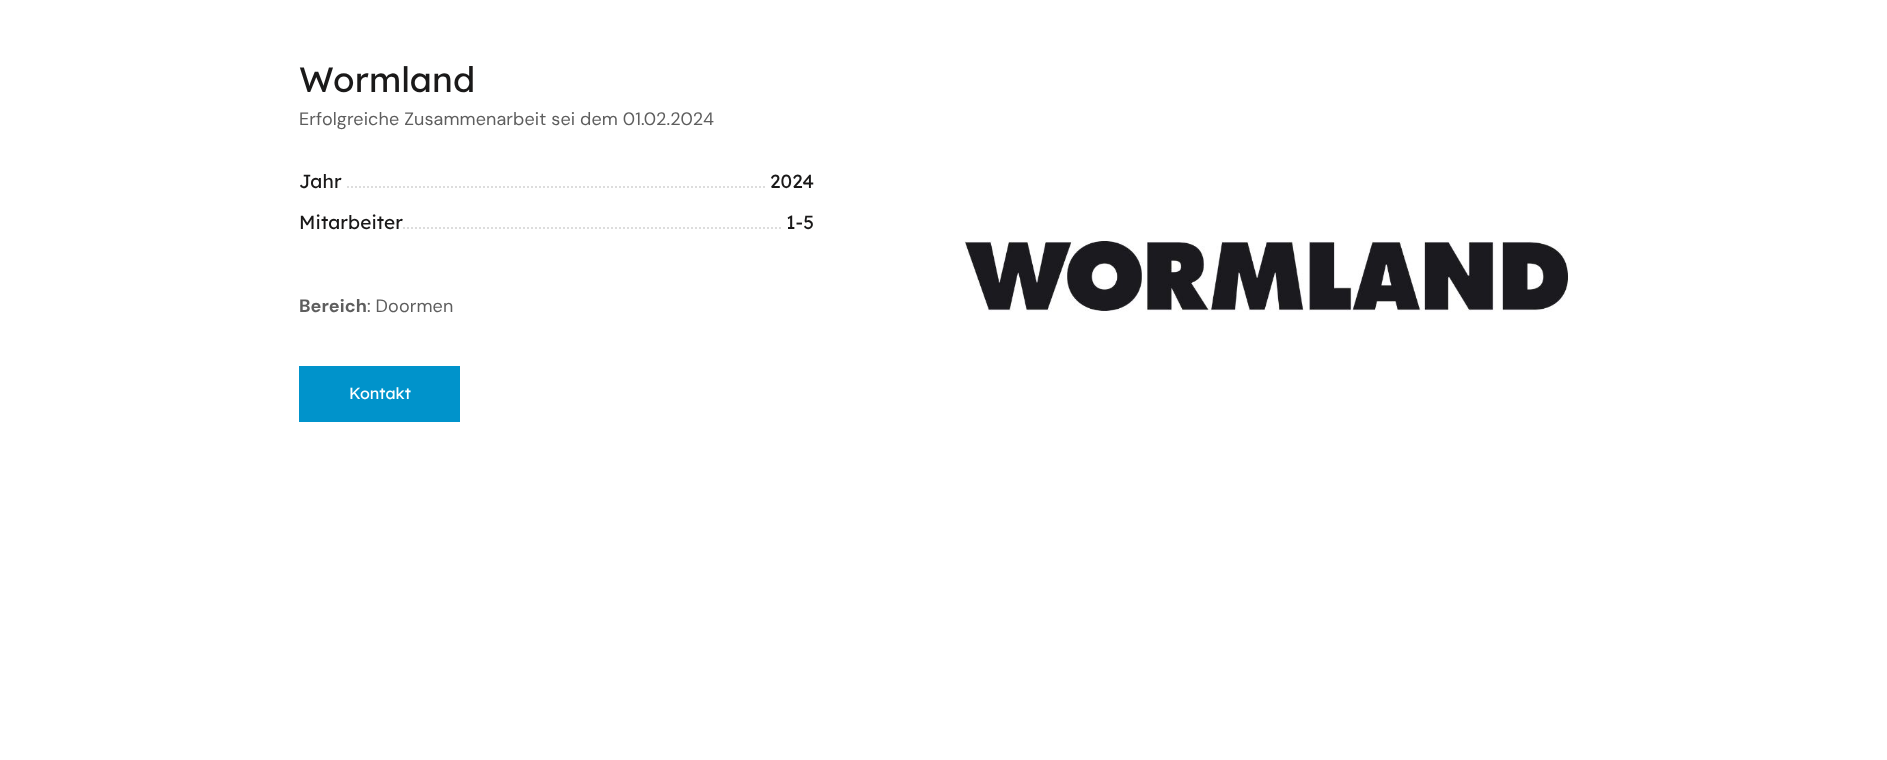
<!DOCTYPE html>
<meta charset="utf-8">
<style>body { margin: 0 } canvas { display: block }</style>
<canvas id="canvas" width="1887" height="760"></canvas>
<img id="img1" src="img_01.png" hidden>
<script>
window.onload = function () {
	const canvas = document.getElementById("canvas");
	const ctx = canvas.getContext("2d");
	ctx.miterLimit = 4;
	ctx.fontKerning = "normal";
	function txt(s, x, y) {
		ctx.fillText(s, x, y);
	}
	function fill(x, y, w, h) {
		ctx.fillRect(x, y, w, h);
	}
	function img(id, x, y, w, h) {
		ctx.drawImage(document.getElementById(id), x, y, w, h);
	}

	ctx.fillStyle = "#FFFFFF";
	fill(0, 0, 1887, 760);
	ctx.save();
	ctx.beginPath();
	ctx.rect(299, 169, 516, 24);
	ctx.clip();
	ctx.beginPath();
	ctx.moveTo(347, 187);
	ctx.lineTo(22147, 187);
	ctx.strokeStyle = "#DDDDDD";
	ctx.lineWidth = 2;
	ctx.setLineDash([2, 2]);
	ctx.stroke();
	ctx.restore();
	fill(767, 186, 46, 2);
	ctx.save();
	ctx.beginPath();
	ctx.rect(299, 210, 516, 24);
	ctx.clip();
	ctx.beginPath();
	ctx.moveTo(403, 228);
	ctx.lineTo(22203, 228);
	ctx.strokeStyle = "#DDDDDD";
	ctx.lineWidth = 2;
	ctx.setLineDash([2, 2]);
	ctx.stroke();
	ctx.restore();
	fill(783, 227, 30, 2);
	ctx.fillStyle = "#0093CB";
	fill(299, 366, 161, 56);
	img("img1", 964, 240, 605, 72);
	ctx.letterSpacing = "0.1px";
	ctx.font = "35px Lexend Deca";
	ctx.fillStyle = "#1A1919";
	txt("Wormland", 299, 92);
	ctx.font = "18px DM Sans";
	ctx.fillStyle = "#5E5E5E";
	txt("Erfolgreiche Zusammenarbeit sei dem 01.02.2024", 299, 125);
	ctx.font = "19px Lexend Deca";
	ctx.fillStyle = "#1A1919";
	txt("Jahr", 299, 188);
	txt("2024", 770, 188);
	txt("Mitarbeiter", 299, 229);
	txt("1-5", 786, 229);
	ctx.font = "bold 18px DM Sans";
	ctx.fillStyle = "#5E5E5E";
	txt("Bereich", 299, 312);
	ctx.font = "18px DM Sans";
	txt(": Doormen", 367, 312);
	ctx.letterSpacing = "0px";
	ctx.font = "16px Lexend Deca";
	ctx.fillStyle = "#FFFFFF";
	txt("Kontakt", 349, 399);
};
</script>
